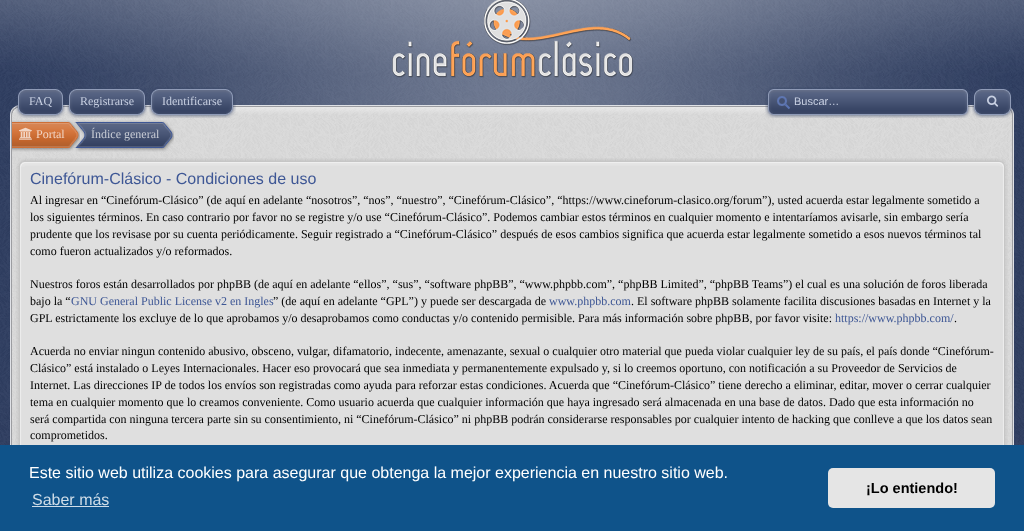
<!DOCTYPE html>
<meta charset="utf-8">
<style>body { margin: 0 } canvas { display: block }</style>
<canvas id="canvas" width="1024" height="531"></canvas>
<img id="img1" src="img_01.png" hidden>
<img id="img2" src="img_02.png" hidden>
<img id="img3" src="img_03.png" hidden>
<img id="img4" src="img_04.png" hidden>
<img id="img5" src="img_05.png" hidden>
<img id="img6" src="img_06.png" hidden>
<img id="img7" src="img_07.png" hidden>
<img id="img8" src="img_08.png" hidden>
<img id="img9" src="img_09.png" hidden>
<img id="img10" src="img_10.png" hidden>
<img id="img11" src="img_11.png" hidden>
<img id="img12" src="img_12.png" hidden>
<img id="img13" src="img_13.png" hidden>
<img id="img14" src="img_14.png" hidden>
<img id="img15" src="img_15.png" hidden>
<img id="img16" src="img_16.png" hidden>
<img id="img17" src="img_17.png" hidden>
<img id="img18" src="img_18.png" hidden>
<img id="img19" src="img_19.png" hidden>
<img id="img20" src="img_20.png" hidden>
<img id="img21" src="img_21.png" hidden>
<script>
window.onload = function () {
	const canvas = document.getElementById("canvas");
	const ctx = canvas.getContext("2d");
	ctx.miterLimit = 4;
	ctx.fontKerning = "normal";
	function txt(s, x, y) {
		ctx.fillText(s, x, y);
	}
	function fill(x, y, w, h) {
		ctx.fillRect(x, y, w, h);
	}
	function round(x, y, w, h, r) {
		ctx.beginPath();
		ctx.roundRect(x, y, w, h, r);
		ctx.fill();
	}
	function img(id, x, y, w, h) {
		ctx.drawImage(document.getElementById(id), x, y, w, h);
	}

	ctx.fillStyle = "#FFFFFF";
	fill(0, 0, 1024, 531);
	img("img1", 0, 0, 1024, 445);
	img("img2", 0, 0, 1024, 105);
	img("img3", 392, 0, 242, 78);
	img("img4", 10, 105, 1004, 13);
	img("img5", 15, 89, 41, 29);
	img("img6", 56, 89, 10, 29);
	img("img7", 66, 88, 72, 30);
	img("img8", 138, 89, 10, 29);
	img("img9", 148, 87, 78, 31);
	img("img10", 226, 88, 10, 30);
	img("img11", 765, 87, 206, 31);
	img("img12", 971, 89, 33, 29);
	img("img13", 1004, 89, 9, 29);
	img("img14", 987, 95, 12, 12);
	img("img15", 10, 118, 1004, 327);
	img("img16", 65, 120, 15, 32);
	img("img17", 12, 120, 53, 32);
	img("img18", 19, 127, 13, 13);
	img("img19", 159, 120, 15, 32);
	img("img20", 74, 120, 85, 32);
	ctx.fillStyle = "#DFDFDF";
	fill(22, 166, 980, 279);
	img("img21", 16, 158, 992, 287);
	ctx.fillStyle = "#0F538A";
	fill(0, 445, 1024, 86);
	ctx.fillStyle = "#CFDDE8";
	fill(32, 506, 77, 1);
	ctx.fillStyle = "#E5E5E5";
	round(828, 468, 167, 40, 5);
	ctx.font = "12px Liberation Serif";
	ctx.fillStyle = "#C8D0E2";
	txt("FAQ", 29, 105);
	txt("Registrarse", 80, 105);
	txt("Identificarse", 162, 105);
	ctx.font = "11px Liberation Sans";
	txt("Buscar…", 794, 105);
	ctx.font = "12px Liberation Serif";
	ctx.fillStyle = "#F1D4C3";
	txt("Portal", 36, 138);
	ctx.fillStyle = "#C8CCD5";
	txt("Índice general", 91, 138);
	ctx.font = "16px Liberation Sans";
	ctx.fillStyle = "#3E5795";
	txt("Cinefórum-Clásico - Condiciones de uso", 30, 184);
	ctx.font = "12px Liberation Serif";
	ctx.fillStyle = "#000000";
	txt("Al ingresar en “Cinefórum-Clásico” (de aquí en adelante “nosotros”, “nos”, “nuestro”, “Cinefórum-Clásico”, “https://www.cineforum-clasico.org/forum”), usted acuerda estar legalmente sometido a", 30, 204);
	txt("los siguientes términos. En caso contrario por favor no se registre y/o use “Cinefórum-Clásico”. Podemos cambiar estos términos en cualquier momento e intentaríamos avisarle, sin embargo sería", 30, 221);
	txt("prudente que los revisase por su cuenta periódicamente. Seguir registrado a “Cinefórum-Clásico” después de esos cambios significa que acuerda estar legalmente sometido a esos nuevos términos tal", 30, 238);
	txt("como fueron actualizados y/o reformados.", 30, 255);
	txt("Nuestros foros están desarrollados por phpBB (de aquí en adelante “ellos”, “sus”, “software phpBB”, “www.phpbb.com”, “phpBB Limited”, “phpBB Teams”) el cual es una solución de foros liberada", 30, 288);
	txt("bajo la “", 30, 305);
	ctx.fillStyle = "#3E5795";
	txt("GNU General Public License v2 en Ingles", 71, 305);
	ctx.fillStyle = "#000000";
	txt("” (de aquí en adelante “GPL”) y puede ser descargada de", 273, 305);
	ctx.fillStyle = "#3E5795";
	txt("www.phpbb.com", 549, 305);
	ctx.fillStyle = "#000000";
	txt(". El software phpBB solamente facilita discusiones basadas en Internet y la", 631, 305);
	txt("GPL estrictamente los excluye de lo que aprobamos y/o desaprobamos como conductas y/o contenido permisible. Para más información sobre phpBB, por favor visite:", 30, 322);
	ctx.fillStyle = "#3E5795";
	txt("https://www.phpbb.com/", 835, 322);
	ctx.fillStyle = "#000000";
	txt(".", 954, 322);
	txt("Acuerda no enviar ningun contenido abusivo, obsceno, vulgar, difamatorio, indecente, amenazante, sexual o cualquier otro material que pueda violar cualquier ley de su país, el país donde “Cinefórum-", 30, 355);
	txt("Clásico” está instalado o Leyes Internacionales. Hacer eso provocará que sea inmediata y permanentemente expulsado y, si lo creemos oportuno, con notificación a su Proveedor de Servicios de", 30, 372);
	txt("Internet. Las direcciones IP de todos los envíos son registradas como ayuda para reforzar estas condiciones. Acuerda que “Cinefórum-Clásico” tiene derecho a eliminar, editar, mover o cerrar cualquier", 30, 389);
	txt("tema en cualquier momento que lo creamos conveniente. Como usuario acuerda que cualquier información que haya ingresado será almacenada en una base de datos. Dado que esta información no", 30, 406);
	txt("será compartida con ninguna tercera parte sin su consentimiento, ni “Cinefórum-Clásico” ni phpBB podrán considerarse responsables por cualquier intento de hacking que conlleve a que los datos sean", 30, 423);
	txt("comprometidos.", 30, 439);
	ctx.font = "16px Liberation Sans";
	ctx.fillStyle = "#FFFFFF";
	txt("Este sitio web utiliza cookies para asegurar que obtenga la mejor experiencia en nuestro sitio web.", 29, 478);
	ctx.fillStyle = "#CFDDE8";
	txt("Saber más", 32, 505);
	ctx.font = "bold 14.5px Liberation Sans";
	ctx.fillStyle = "#000000";
	txt("¡Lo entiendo!", 866, 493);
};
</script>
